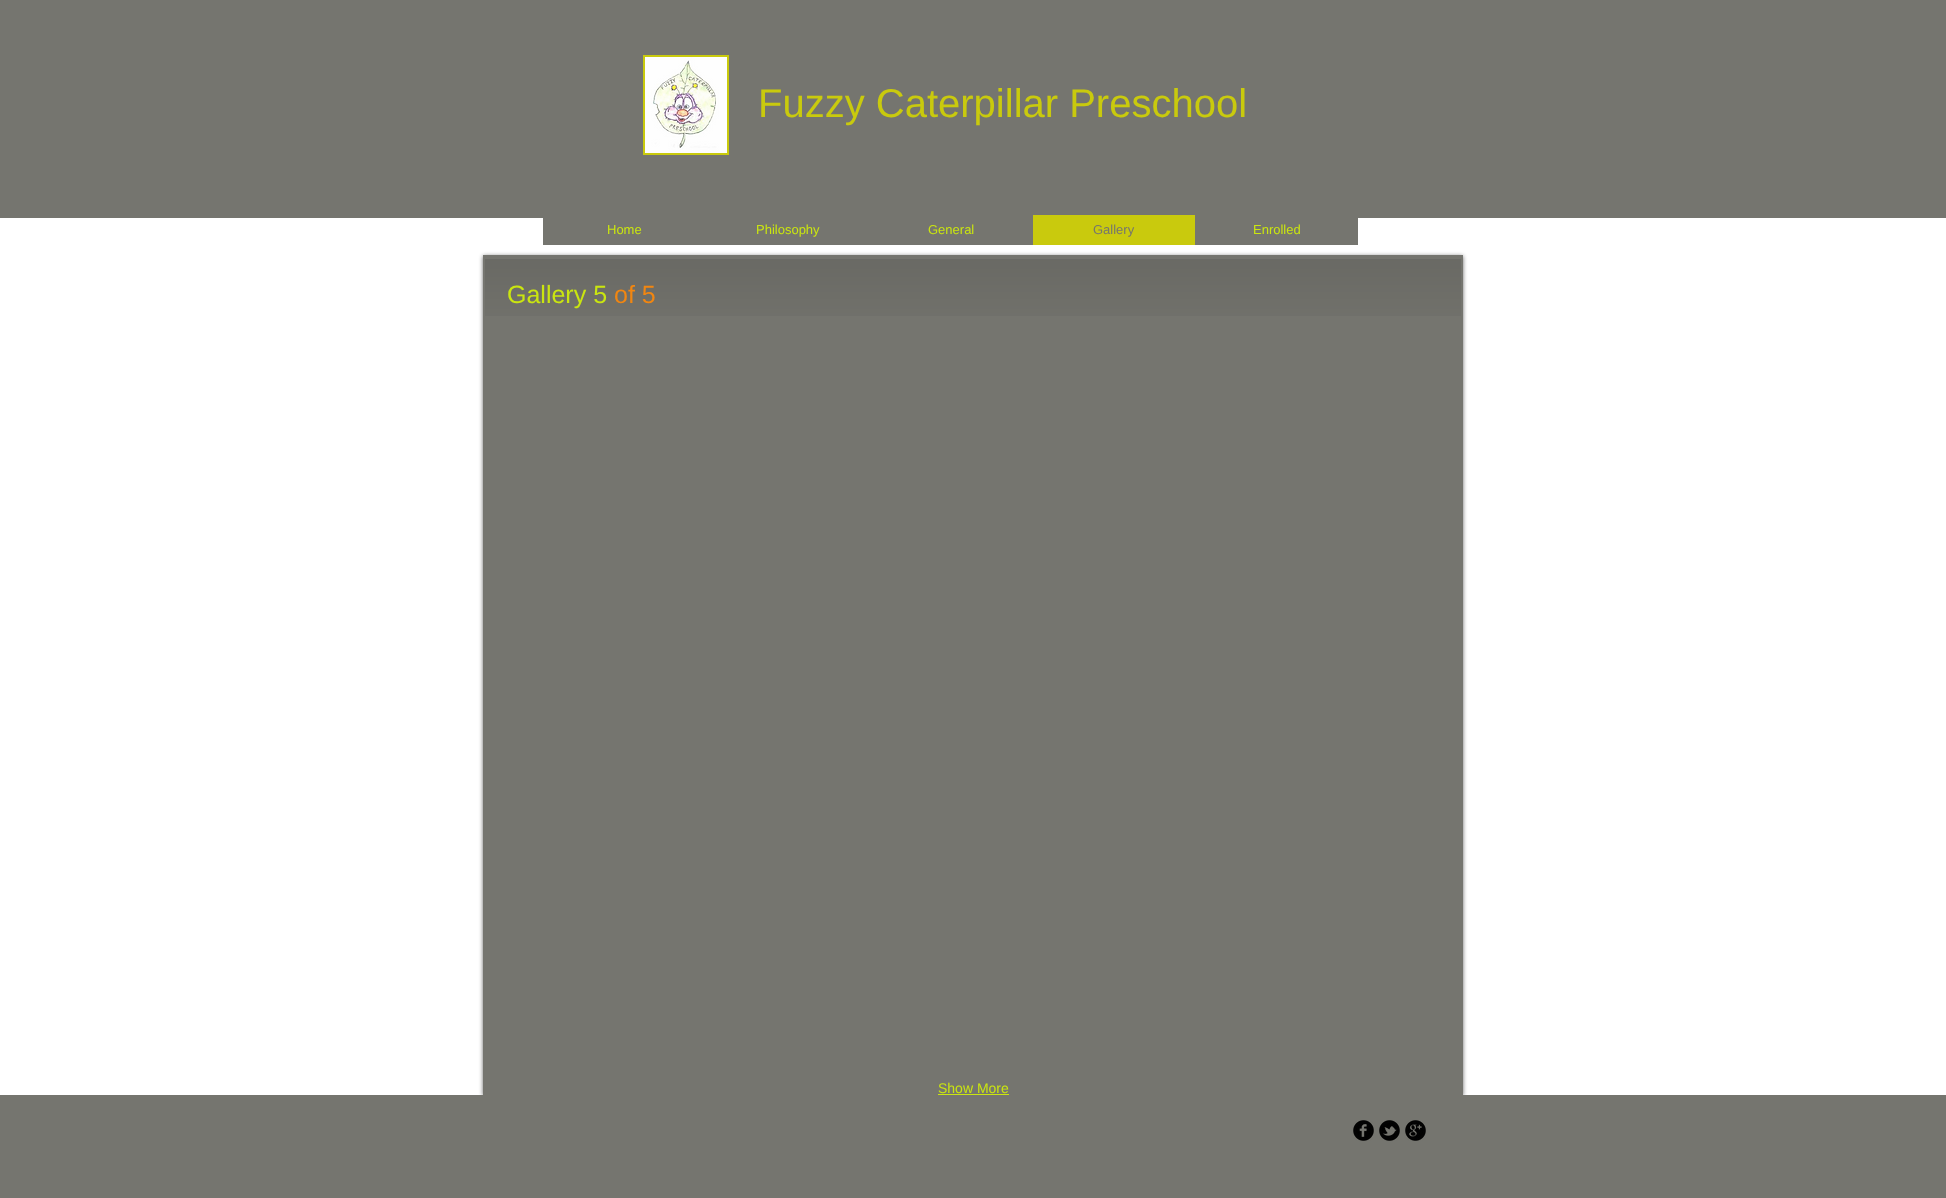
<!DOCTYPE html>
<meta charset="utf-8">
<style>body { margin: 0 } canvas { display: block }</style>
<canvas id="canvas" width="1946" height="1198"></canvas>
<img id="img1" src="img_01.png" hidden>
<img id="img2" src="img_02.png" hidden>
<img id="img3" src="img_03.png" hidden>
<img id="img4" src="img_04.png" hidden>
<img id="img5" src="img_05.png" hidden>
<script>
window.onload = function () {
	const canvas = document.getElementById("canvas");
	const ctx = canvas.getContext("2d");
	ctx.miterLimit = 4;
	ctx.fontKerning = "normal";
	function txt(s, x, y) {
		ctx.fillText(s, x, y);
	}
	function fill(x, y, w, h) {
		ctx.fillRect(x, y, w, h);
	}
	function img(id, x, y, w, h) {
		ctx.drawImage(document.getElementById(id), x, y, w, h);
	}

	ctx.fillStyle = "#FFFFFF";
	fill(0, 0, 1946, 1198);
	ctx.fillStyle = "#75756F";
	fill(0, 0, 1946, 218);
	ctx.fillStyle = "#C9CA0D";
	fill(643, 55, 86, 100);
	img("img1", 645, 57, 82, 96);
	ctx.fillStyle = "#75756F";
	fill(543, 218, 815, 27);
	ctx.fillStyle = "#C9CA0D";
	fill(1033, 215, 162, 30);
	ctx.fillStyle = "rgba(0, 0, 0, 0.6)";
	ctx.filter = "blur(2px)";
	ctx.beginPath();
	ctx.rect(483, 256, 980, 840);
	ctx.fill();
	ctx.filter = "none";
	ctx.fillStyle = "#75756F";
	fill(485, 257, 976, 836);
	img("img2", 485, 259, 976, 57);
	ctx.strokeStyle = "#75756F";
	ctx.lineWidth = 2;
	ctx.strokeRect(484, 256, 978, 838);
	ctx.fillStyle = "#CAE510";
	fill(938, 1094, 71, 1);
	ctx.fillStyle = "#75756F";
	fill(0, 1095, 1946, 103);
	img("img3", 1353, 1120, 21, 21);
	img("img4", 1379, 1120, 21, 21);
	img("img5", 1405, 1120, 21, 21);
	ctx.font = "40px Liberation Sans";
	ctx.fillStyle = "#C9CA0D";
	txt("Fuzzy Caterpillar Preschool", 758, 117);
	ctx.font = "13px Liberation Sans";
	ctx.fillStyle = "#CAE510";
	txt("Home", 607, 234);
	txt("Philosophy", 756, 234);
	txt("General", 928, 234);
	ctx.fillStyle = "#75756F";
	txt("Gallery", 1093, 234);
	ctx.fillStyle = "#CAE510";
	txt("Enrolled", 1253, 234);
	ctx.font = "25px Liberation Sans";
	txt("Gallery 5", 507, 303);
	ctx.fillStyle = "#F18611";
	txt("of 5", 614, 303);
	ctx.font = "14px Liberation Sans";
	ctx.fillStyle = "#CAE510";
	txt("Show More", 938, 1093);
};
</script>
